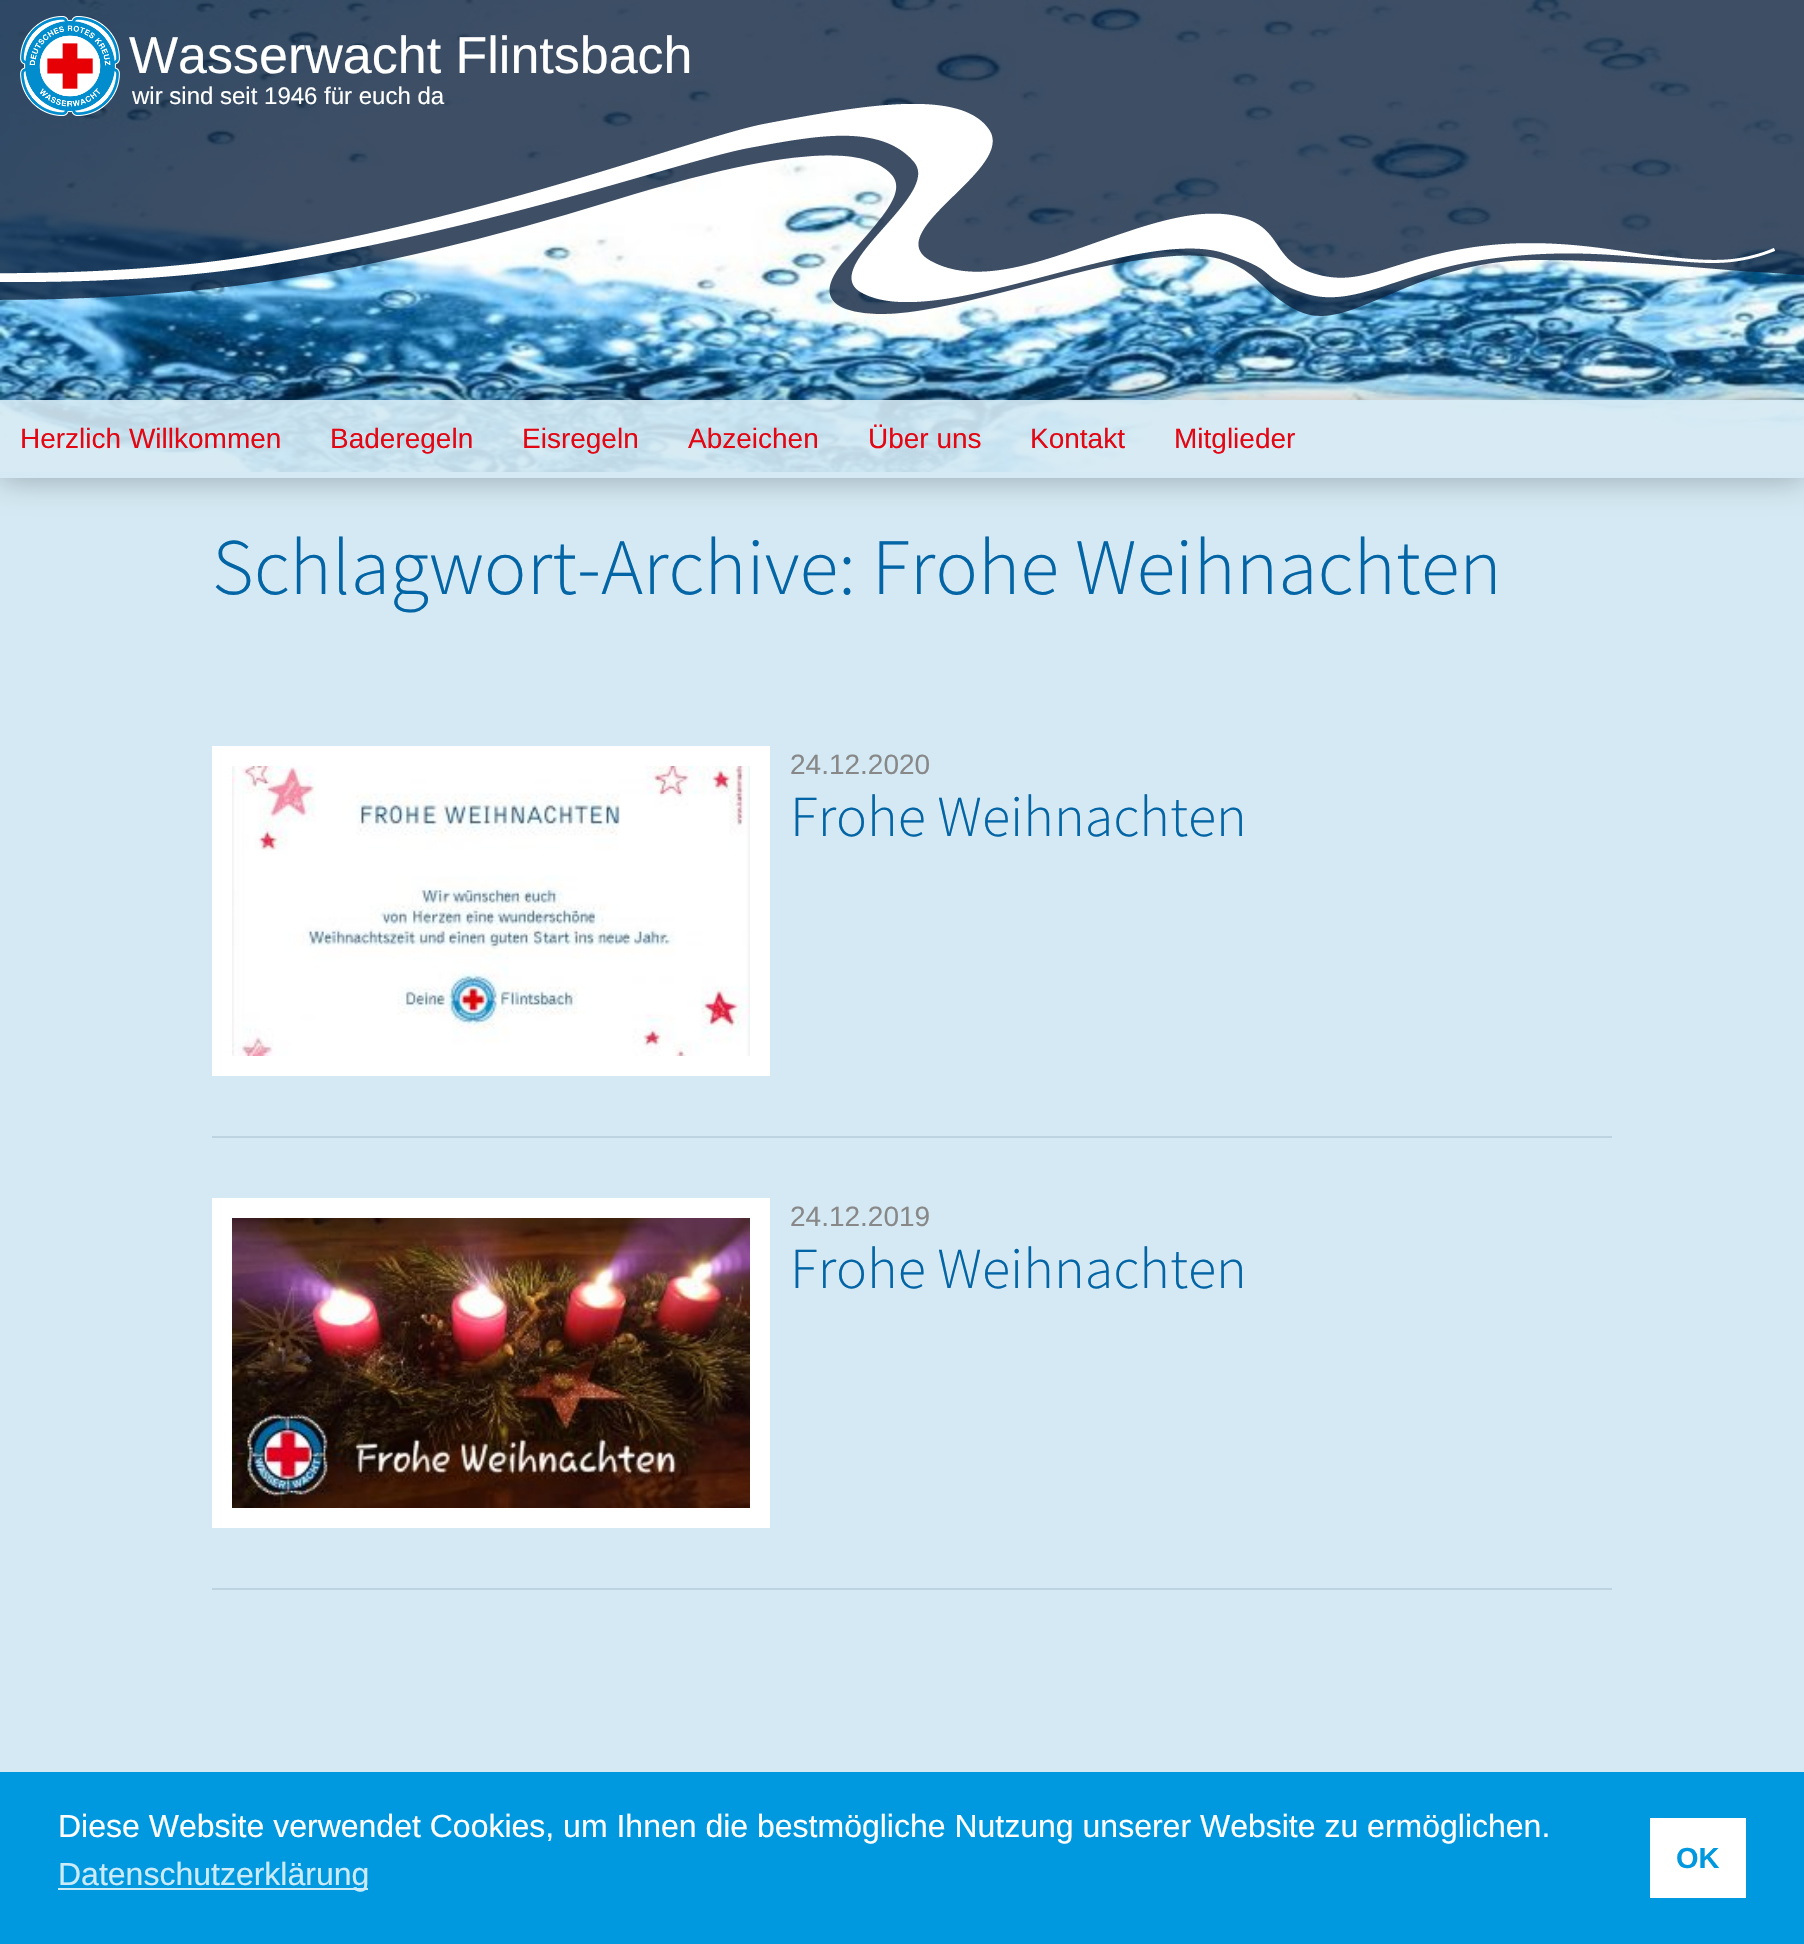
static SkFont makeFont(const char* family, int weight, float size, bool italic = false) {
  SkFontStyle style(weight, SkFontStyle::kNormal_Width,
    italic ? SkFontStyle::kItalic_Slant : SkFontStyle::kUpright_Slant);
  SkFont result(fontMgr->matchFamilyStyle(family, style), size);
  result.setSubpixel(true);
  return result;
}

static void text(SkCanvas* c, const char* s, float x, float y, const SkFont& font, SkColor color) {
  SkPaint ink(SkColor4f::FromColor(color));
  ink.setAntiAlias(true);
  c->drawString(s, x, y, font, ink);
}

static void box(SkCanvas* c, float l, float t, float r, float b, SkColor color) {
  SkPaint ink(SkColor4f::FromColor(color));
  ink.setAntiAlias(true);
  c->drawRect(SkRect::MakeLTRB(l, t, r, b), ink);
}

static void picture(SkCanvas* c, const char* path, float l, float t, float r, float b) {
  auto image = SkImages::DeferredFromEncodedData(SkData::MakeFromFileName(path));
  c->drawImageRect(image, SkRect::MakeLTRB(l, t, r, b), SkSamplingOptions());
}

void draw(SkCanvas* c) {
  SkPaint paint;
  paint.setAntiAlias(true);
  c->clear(0xffd4e9f3);
  picture(c, "img_02.png", 0, 0, 1804, 472);
  picture(c, "img_01.png", 0, 0, 1804, 316);
  picture(c, "img_03.png", 20, 16, 120, 116);
  SkFont face1 = makeFont("Liberation Sans", 400, 52);
  text(c, "Wasserwacht Flintsbach", 129, 73, face1, 0xffffffff);
  SkFont face2 = makeFont("Liberation Sans", 400, 24);
  text(c, "wir sind seit 1946 für euch da", 132, 104, face2, 0xffffffff);
  c->save();
  c->clipPath(SkPathBuilder(SkPathFillType::kEvenOdd).moveTo(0, 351).lineTo(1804, 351).lineTo(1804, 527).lineTo(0, 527).close().moveTo(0, 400).lineTo(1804, 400).lineTo(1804, 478).lineTo(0, 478).close().detach(), true);
  paint.setColor(0x4d000000);
  paint.setMaskFilter(SkMaskFilter::MakeBlur(kNormal_SkBlurStyle, 16));
  c->drawRect(SkRect::MakeLTRB(0, 400, 1804, 478), paint);
  paint.setMaskFilter(nullptr);
  c->restore();
  box(c, 0, 400, 1804, 472, 0xe6d4e9f3);
  SkFont face3 = makeFont("Liberation Sans", 400, 28);
  text(c, "Herzlich Willkommen", 20, 448, face3, 0xffe30613);
  text(c, "Baderegeln", 330, 448, face3, 0xffe30613);
  text(c, "Eisregeln", 522, 448, face3, 0xffe30613);
  text(c, "Abzeichen", 688, 448, face3, 0xffe30613);
  text(c, "Über uns", 868, 448, face3, 0xffe30613);
  text(c, "Kontakt", 1030, 448, face3, 0xffe30613);
  text(c, "Mitglieder", 1174, 448, face3, 0xffe30613);
  SkFont face4 = makeFont("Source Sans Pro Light", 300, 80);
  text(c, "Schlagwort-Archive: Frohe Weihnachten", 212, 594, face4, 0xff0365a5);
  box(c, 212, 1136, 1612, 1138, 0xffbed3e0);
  paint.setStyle(SkPaint::kStroke_Style);
  paint.setStrokeWidth(20);
  paint.setColor(0xffffffff);
  c->drawRect(SkRect::MakeLTRB(222, 756, 760, 1066), paint);
  picture(c, "img_04.png", 232, 766, 750, 1056);
  text(c, "24.12.2020", 790, 774, face3, 0xff888888);
  SkFont face5 = makeFont("Source Sans Pro Light", 300, 58);
  text(c, "Frohe Weihnachten", 790, 836, face5, 0xff0365a5);
  box(c, 212, 1588, 1612, 1590, 0xffbed3e0);
  c->drawRect(SkRect::MakeLTRB(222, 1208, 760, 1518), paint);
  picture(c, "img_05.png", 232, 1218, 750, 1508);
  text(c, "24.12.2019", 790, 1226, face3, 0xff888888);
  text(c, "Frohe Weihnachten", 790, 1288, face5, 0xff0365a5);
  box(c, 0, 1772, 1804, 1944, 0xff0099df);
  SkFont face6 = makeFont("Liberation Sans", 400, 32);
  text(c, "Diese Website verwendet Cookies, um Ihnen die bestmögliche Nutzung unserer Website zu ermöglichen.", 58, 1837, face6, 0xffffffff);
  box(c, 58, 1888, 368, 1890, 0xffccebf9);
  text(c, "Datenschutzerklärung", 58, 1885, face6, 0xffccebf9);
  box(c, 1650, 1818, 1746, 1898, 0xffffffff);
  SkFont face7 = makeFont("Liberation Sans", 700, 29);
  text(c, "OK", 1676, 1868, face7, 0xff0099df);
}
